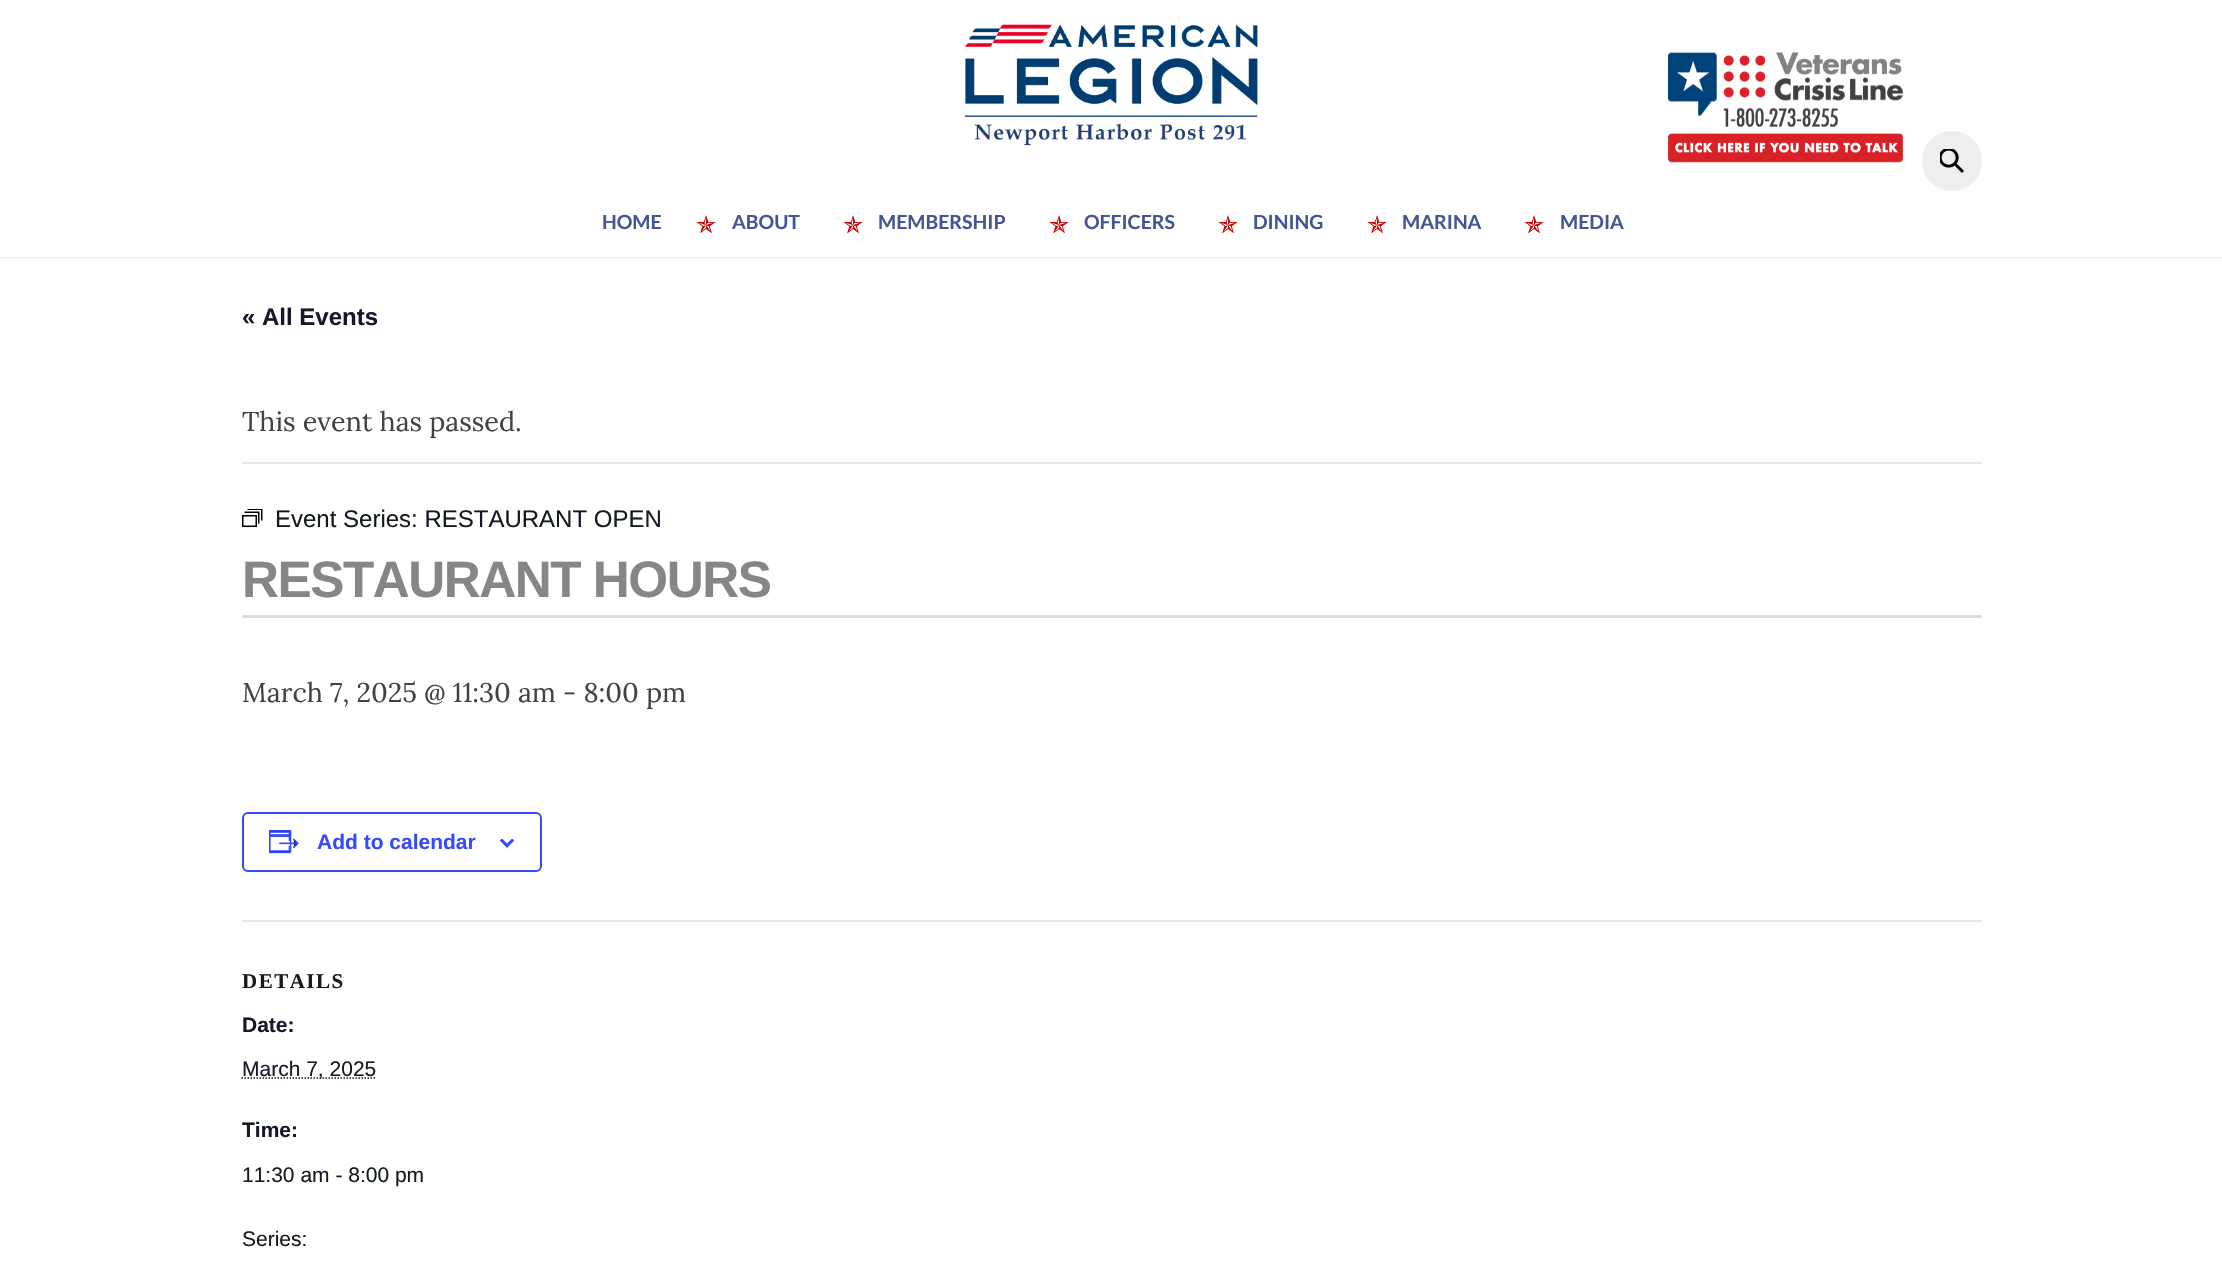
static SkFont makeFont(const char* family, int weight, float size, bool italic = false) {
  SkFontStyle style(weight, SkFontStyle::kNormal_Width,
    italic ? SkFontStyle::kItalic_Slant : SkFontStyle::kUpright_Slant);
  SkFont result(fontMgr->matchFamilyStyle(family, style), size);
  result.setSubpixel(true);
  return result;
}

static void text(SkCanvas* c, const char* s, float x, float y, const SkFont& font, SkColor color) {
  SkPaint ink(SkColor4f::FromColor(color));
  ink.setAntiAlias(true);
  c->drawString(s, x, y, font, ink);
}

static void spacedText(SkCanvas* c, const char* s, float x, float y, const SkFont& font, const SkPaint& ink, float letter, float word) {
  std::vector<SkGlyphID> glyphs(font.countText(s, strlen(s), SkTextEncoding::kUTF8));
  std::vector<float> xs(glyphs.size());
  font.textToGlyphs(s, strlen(s), SkTextEncoding::kUTF8, glyphs);
  font.getXPos(glyphs, xs, x);
  float extra = 0;
  for (size_t i = 0; i < glyphs.size(); i++) {
    xs[i] += extra;
    extra += letter + word * (glyphs[i] == font.unicharToGlyph(' '));
  }
  c->drawTextBlob(SkTextBlob::MakeFromPosHGlyphs(glyphs, xs, y, font), 0, 0, ink);
}

static void box(SkCanvas* c, float l, float t, float r, float b, SkColor color) {
  SkPaint ink(SkColor4f::FromColor(color));
  ink.setAntiAlias(true);
  c->drawRect(SkRect::MakeLTRB(l, t, r, b), ink);
}

static void picture(SkCanvas* c, const char* path, float l, float t, float r, float b) {
  auto image = SkImages::DeferredFromEncodedData(SkData::MakeFromFileName(path));
  c->drawImageRect(image, SkRect::MakeLTRB(l, t, r, b), SkSamplingOptions());
}

void draw(SkCanvas* c) {
  SkPaint paint;
  paint.setAntiAlias(true);
  c->clear(0xffffffff);
  box(c, 0, 257, 2222, 259, 0xfff2f2f2);
  picture(c, "img_01.png", 1668, 52, 1904, 163);
  paint.setColor(0xffeeeeee);
  c->drawCircle(1952, 161, 30, paint);
  picture(c, "img_02.png", 1940, 149, 1964, 173);
  picture(c, "img_03.png", 965, 24, 1258, 146);
  SkFont face1 = makeFont("Lato", 700, 19.5f);
  text(c, "HOME", 602, 229, face1, 0xff435499);
  SkFont face2 = makeFont("DejaVu Sans", 400, 24);
  text(c, "✯", 696, 233, face2, 0xffcc0000);
  text(c, "ABOUT", 732, 229, face1, 0xff435499);
  text(c, "✯", 843, 233, face2, 0xffcc0000);
  text(c, "MEMBERSHIP", 878, 229, face1, 0xff435499);
  text(c, "✯", 1049, 233, face2, 0xffcc0000);
  text(c, "OFFICERS", 1084, 229, face1, 0xff435499);
  text(c, "✯", 1218, 233, face2, 0xffcc0000);
  text(c, "DINING", 1253, 229, face1, 0xff435499);
  text(c, "✯", 1367, 233, face2, 0xffcc0000);
  text(c, "MARINA", 1402, 229, face1, 0xff435499);
  text(c, "✯", 1524, 233, face2, 0xffcc0000);
  text(c, "MEDIA", 1560, 229, face1, 0xff435499);
  SkFont face3 = makeFont("Liberation Sans", 700, 24);
  text(c, "« All Events", 242, 325, face3, 0xff141827);
  box(c, 242, 462, 1982, 464, 0xffe4e4e4);
  SkFont face4 = makeFont("Lora", 400, 27);
  text(c, "This event has passed.", 242, 431, face4, 0xff424242);
  picture(c, "img_04.png", 242, 509, 263, 527);
  SkFont face5 = makeFont("Liberation Sans", 400, 24);
  text(c, "Event Series: RESTAURANT OPEN", 275, 527, face5, 0xff141827);
  box(c, 242, 615, 1982, 618, 0xffdbdbdb);
  SkFont face6 = makeFont("Liberation Sans", 700, 51.25f);
  paint.setColor(0xff868686);
  spacedText(c, "RESTAURANT HOURS", 242, 597, face6, paint, -1.5f, 0);
  text(c, "March 7, 2025 @ 11:30 am - 8:00 pm", 242, 702, face4, 0xff424242);
  paint.setStyle(SkPaint::kStroke_Style);
  paint.setStrokeWidth(2);
  paint.setColor(0xff334aff);
  c->drawRoundRect(SkRect::MakeLTRB(243, 813, 541, 871), 5, 5, paint);
  picture(c, "img_05.png", 269, 830, 299, 854);
  SkFont face7 = makeFont("Liberation Sans", 700, 21);
  text(c, "Add to calendar", 317, 849, face7, 0xff334aff);
  picture(c, "img_06.png", 500, 839, 515, 848);
  box(c, 242, 920, 1982, 922, 0xffe4e4e4);
  SkFont face8 = makeFont("Liberation Serif", 700, 21);
  paint.setStyle(SkPaint::kFill_Style);
  paint.setColor(0xff141827);
  spacedText(c, "DETAILS", 242, 988, face8, paint, 1.5f, 0);
  text(c, "Date:", 242, 1032, face7, 0xff141827);
  paint.setStyle(SkPaint::kStroke_Style);
  paint.setStrokeWidth(1.5f);
  paint.setPathEffect(SkDashPathEffect::Make({{1.5f, 1.5f}}, 0));
  c->drawPath(SkPathBuilder().moveTo(241.5f, 1078).lineTo(376, 1078).detach(), paint);
  paint.setPathEffect(nullptr);
  SkFont face9 = makeFont("Liberation Sans", 400, 21);
  text(c, "March 7, 2025", 242, 1076, face9, 0xff141827);
  c->save();
  c->clipRect(SkRect::MakeLTRB(242, 764, 1982, 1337));
  text(c, "Time:", 242, 1137, face7, 0xff141827);
  c->restore();
  text(c, "11:30 am - 8:00 pm", 242, 1182, face9, 0xff141827);
  text(c, "Series:", 242, 1246, face9, 0xff141827);
}
